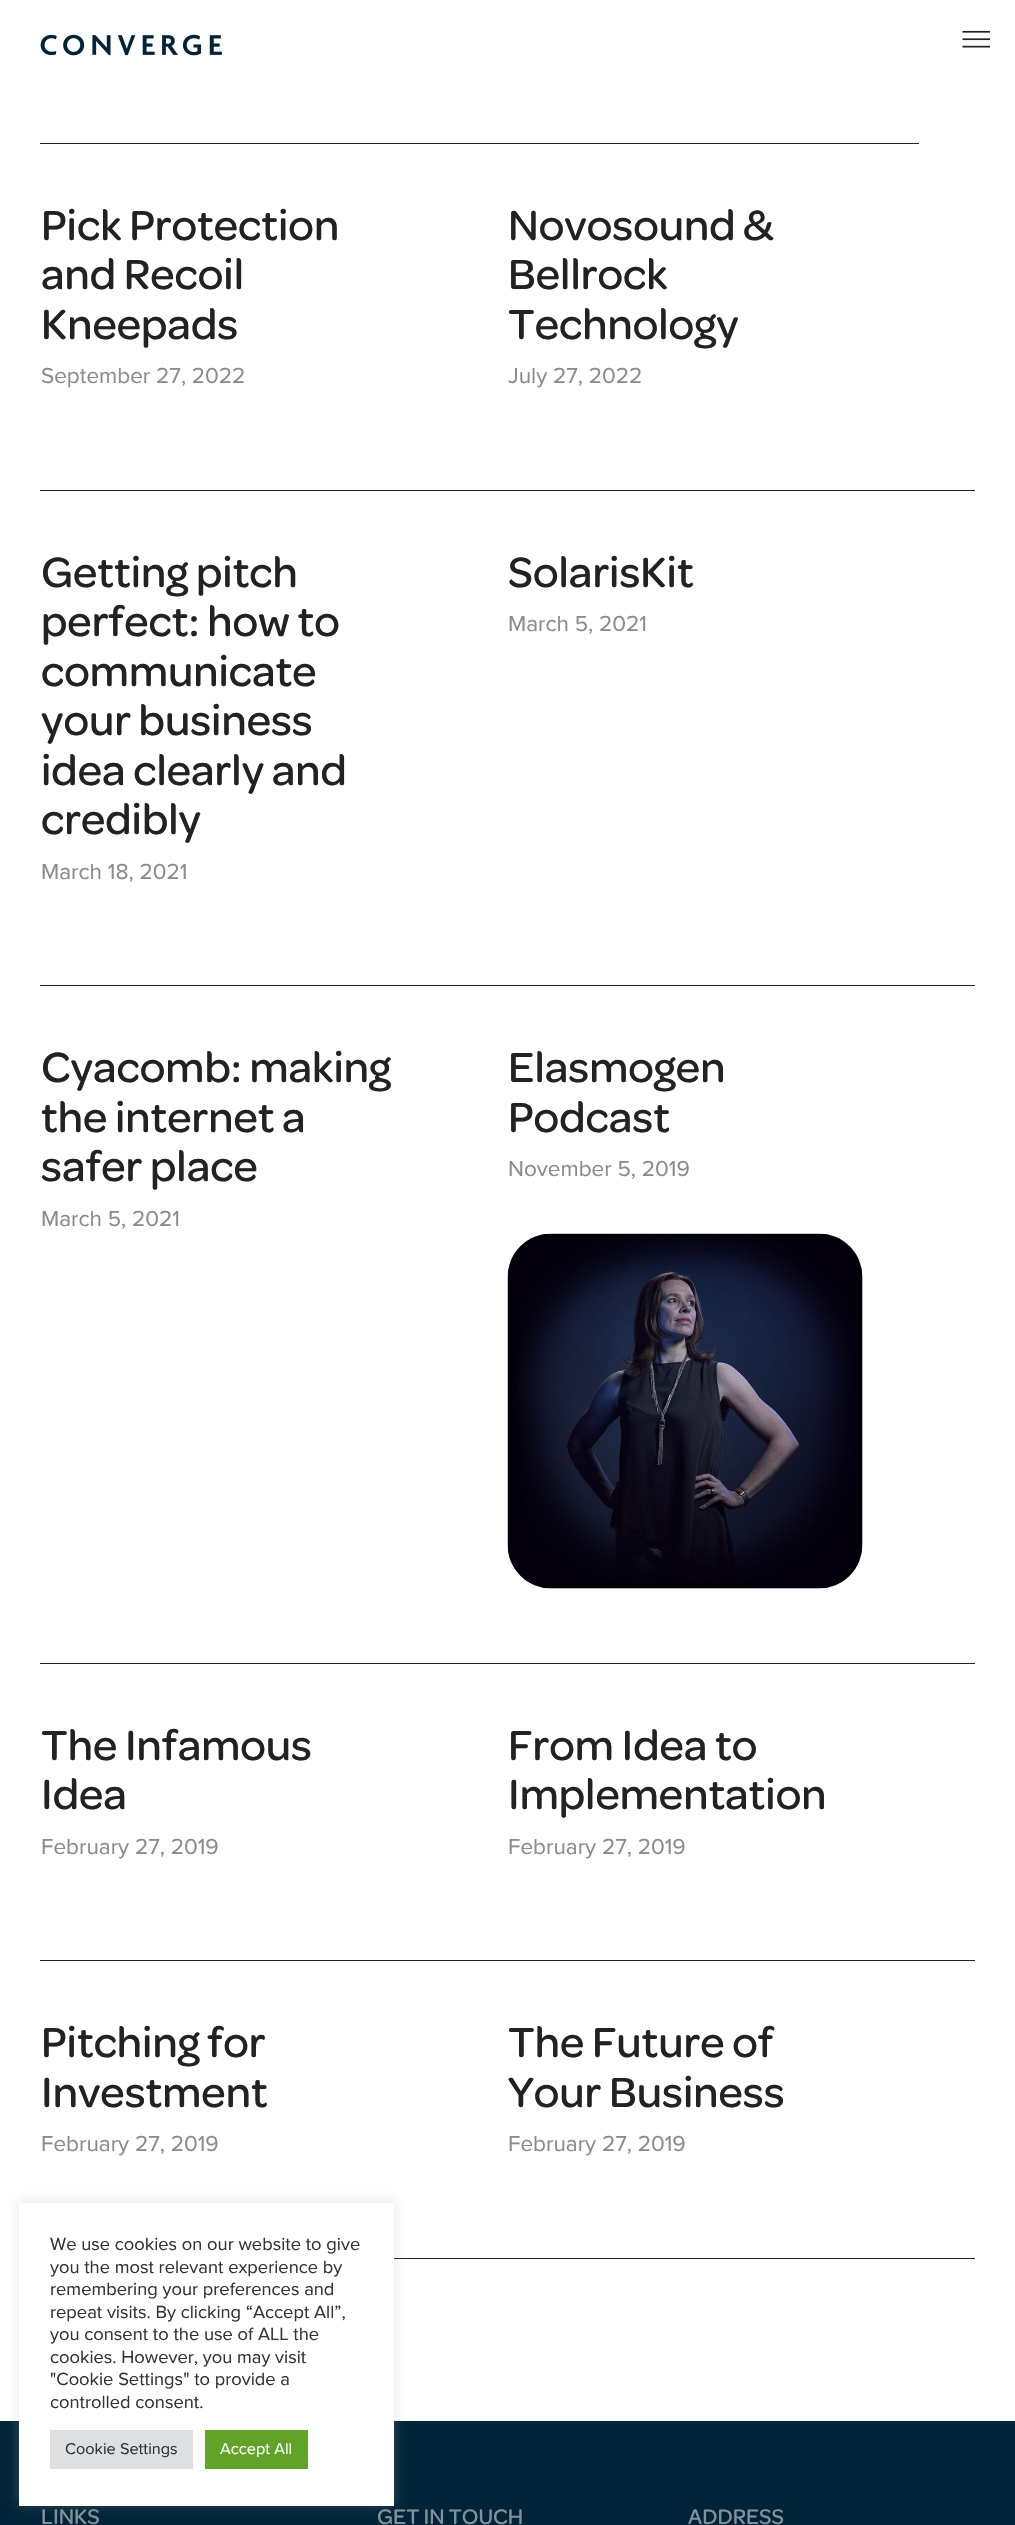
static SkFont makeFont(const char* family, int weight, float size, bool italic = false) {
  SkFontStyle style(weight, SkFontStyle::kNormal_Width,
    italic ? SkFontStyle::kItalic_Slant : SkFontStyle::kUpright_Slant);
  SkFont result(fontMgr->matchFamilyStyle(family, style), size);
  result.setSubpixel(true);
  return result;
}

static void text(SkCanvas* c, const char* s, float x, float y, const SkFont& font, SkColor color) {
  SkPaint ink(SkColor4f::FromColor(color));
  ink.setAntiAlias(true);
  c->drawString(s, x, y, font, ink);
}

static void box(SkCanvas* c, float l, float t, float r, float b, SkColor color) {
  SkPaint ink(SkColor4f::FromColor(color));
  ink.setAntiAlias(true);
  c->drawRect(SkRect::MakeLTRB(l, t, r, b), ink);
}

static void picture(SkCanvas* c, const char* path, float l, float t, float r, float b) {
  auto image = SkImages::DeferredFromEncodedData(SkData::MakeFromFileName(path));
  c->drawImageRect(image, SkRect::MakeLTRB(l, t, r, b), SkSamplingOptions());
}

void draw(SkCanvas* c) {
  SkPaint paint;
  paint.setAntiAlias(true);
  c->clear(0xffffffff);
  picture(c, "img_01.png", 40, 34, 222, 56);
  picture(c, "img_02.png", 962, 30, 990, 48);
  box(c, 40, 143, 919, 144, 0xff222222);
  SkFont face1 = makeFont("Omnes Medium", 500, 45);
  text(c, "Pick Protection", 41, 240, face1, 0xff222222);
  text(c, "and Recoil", 41, 289, face1, 0xff222222);
  text(c, "Kneepads", 41, 339, face1, 0xff222222);
  SkFont face2 = makeFont("Proxima Nova", 400, 22.5f);
  text(c, "September 27, 2022", 41, 383, face2, 0xff8a8a8a);
  box(c, 40, 490, 975, 491, 0xff222222);
  text(c, "Novosound &", 508, 240, face1, 0xff222222);
  text(c, "Bellrock", 508, 289, face1, 0xff222222);
  text(c, "Technology", 508, 339, face1, 0xff222222);
  text(c, "July 27, 2022", 508, 383, face2, 0xff8a8a8a);
  text(c, "Getting pitch", 41, 587, face1, 0xff222222);
  text(c, "perfect: how to", 41, 636, face1, 0xff222222);
  text(c, "communicate", 41, 686, face1, 0xff222222);
  text(c, "your business", 41, 735, face1, 0xff222222);
  text(c, "idea clearly and", 41, 785, face1, 0xff222222);
  text(c, "credibly", 41, 834, face1, 0xff222222);
  text(c, "March 18, 2021", 41, 879, face2, 0xff8a8a8a);
  box(c, 40, 985, 975, 986, 0xff222222);
  text(c, "SolarisKit", 508, 587, face1, 0xff222222);
  text(c, "March 5, 2021", 508, 631, face2, 0xff8a8a8a);
  text(c, "Cyacomb: making", 41, 1082, face1, 0xff222222);
  text(c, "the internet a", 41, 1132, face1, 0xff222222);
  text(c, "safer place", 41, 1181, face1, 0xff222222);
  text(c, "March 5, 2021", 41, 1226, face2, 0xff8a8a8a);
  box(c, 40, 1663, 975, 1664, 0xff222222);
  text(c, "Elasmogen", 508, 1082, face1, 0xff222222);
  text(c, "Podcast", 508, 1132, face1, 0xff222222);
  text(c, "November 5, 2019", 508, 1176, face2, 0xff8a8a8a);
  picture(c, "img_03.png", 507, 1233, 863, 1589);
  text(c, "The Infamous", 41, 1760, face1, 0xff222222);
  text(c, "Idea", 41, 1809, face1, 0xff222222);
  text(c, "February 27, 2019", 41, 1854, face2, 0xff8a8a8a);
  box(c, 40, 1960, 975, 1961, 0xff222222);
  text(c, "From Idea to", 508, 1760, face1, 0xff222222);
  text(c, "Implementation", 508, 1809, face1, 0xff222222);
  text(c, "February 27, 2019", 508, 1854, face2, 0xff8a8a8a);
  text(c, "Pitching for", 41, 2057, face1, 0xff222222);
  text(c, "Investment", 41, 2107, face1, 0xff222222);
  text(c, "February 27, 2019", 41, 2151, face2, 0xff8a8a8a);
  box(c, 394, 2258, 975, 2259, 0xff222222);
  text(c, "The Future of", 508, 2057, face1, 0xff222222);
  text(c, "Your Business", 508, 2107, face1, 0xff222222);
  text(c, "February 27, 2019", 508, 2151, face2, 0xff8a8a8a);
  box(c, 0, 2421, 1015, 2525, 0xff002337);
  SkFont face3 = makeFont("Omnes Medium", 500, 22.5f);
  text(c, "LINKS", 41, 2524, face3, 0xff80919b);
  text(c, "GET IN TOUCH", 377, 2524, face3, 0xff80919b);
  text(c, "ADDRESS", 688, 2524, face3, 0xff80919b);
  paint.setColor(0x4dacabab);
  paint.setMaskFilter(SkMaskFilter::MakeBlur(kNormal_SkBlurStyle, 6));
  c->drawRect(SkRect::MakeLTRB(19, 2201, 394, 2505), paint);
  paint.setMaskFilter(nullptr);
  box(c, 19, 2203, 394, 2506, 0xffffffff);
  SkFont face4 = makeFont("Proxima Nova", 400, 18.3f);
  text(c, "We use cookies on our website to give", 50, 2250, face4, 0xff333333);
  text(c, "you the most relevant experience by", 50, 2273, face4, 0xff333333);
  text(c, "remembering your preferences and", 50, 2295, face4, 0xff333333);
  text(c, "repeat visits. By clicking “Accept All”,", 50, 2318, face4, 0xff333333);
  text(c, "you consent to the use of ALL the", 50, 2340, face4, 0xff333333);
  text(c, "cookies. However, you may visit", 50, 2363, face4, 0xff333333);
  text(c, "\"Cookie Settings\" to provide a", 50, 2385, face4, 0xff333333);
  text(c, "controlled consent.", 50, 2408, face4, 0xff333333);
  box(c, 50, 2430, 193, 2469, 0xffdedfe0);
  SkFont face5 = makeFont("Proxima Nova", 400, 16.25f);
  text(c, "Cookie Settings", 65, 2454, face5, 0xff333333);
  box(c, 205, 2430, 308, 2469, 0xff61a229);
  text(c, "Accept All", 220, 2454, face5, 0xffffffff);
}
